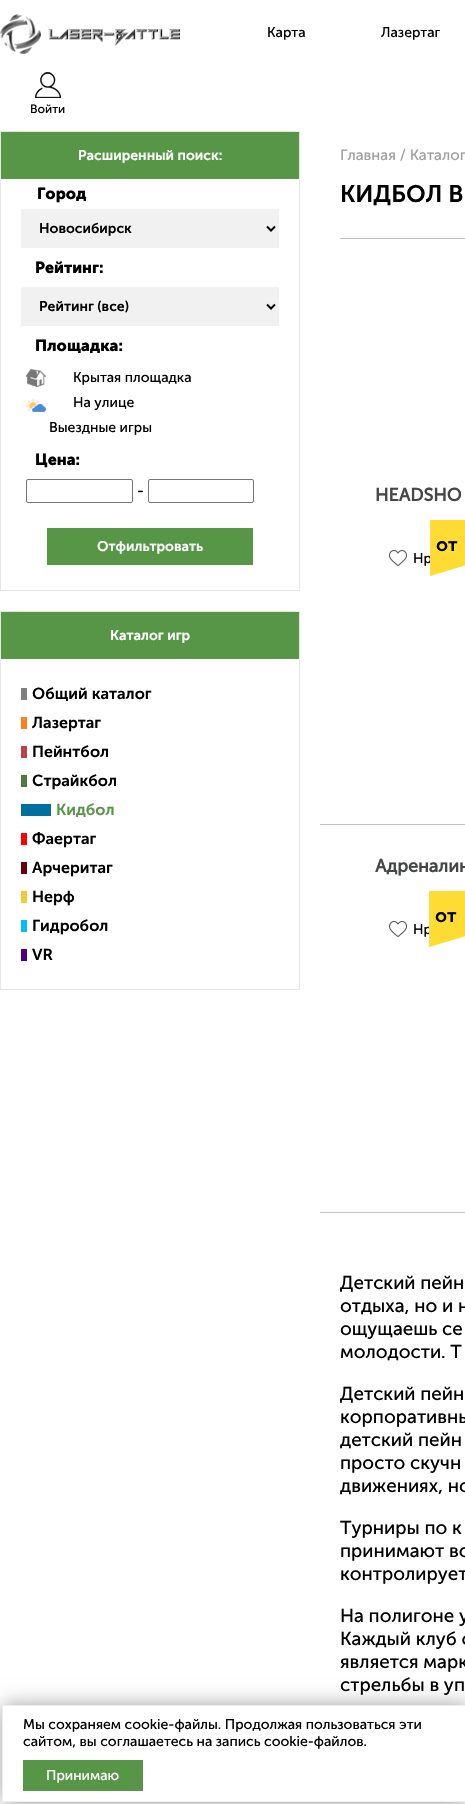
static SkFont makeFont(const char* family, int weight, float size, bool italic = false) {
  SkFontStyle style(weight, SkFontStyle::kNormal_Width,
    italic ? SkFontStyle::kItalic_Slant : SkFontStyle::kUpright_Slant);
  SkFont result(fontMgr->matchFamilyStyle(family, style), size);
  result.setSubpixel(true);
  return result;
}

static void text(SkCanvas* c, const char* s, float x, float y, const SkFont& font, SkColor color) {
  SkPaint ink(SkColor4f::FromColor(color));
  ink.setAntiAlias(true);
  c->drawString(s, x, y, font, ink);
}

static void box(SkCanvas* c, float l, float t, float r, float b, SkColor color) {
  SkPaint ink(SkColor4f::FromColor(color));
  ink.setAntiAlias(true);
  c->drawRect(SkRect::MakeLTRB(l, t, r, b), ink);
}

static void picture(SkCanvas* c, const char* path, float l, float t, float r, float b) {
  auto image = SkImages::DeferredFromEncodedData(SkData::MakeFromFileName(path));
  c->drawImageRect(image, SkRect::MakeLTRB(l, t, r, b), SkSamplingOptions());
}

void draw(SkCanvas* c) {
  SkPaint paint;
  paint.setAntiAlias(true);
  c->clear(0xffffffff);
  picture(c, "img_01.png", 0, 14, 180, 54);
  SkFont face1 = makeFont("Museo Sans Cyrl", 400, 14);
  text(c, "Карта", 267, 37, face1, 0xff000000);
  text(c, "Лазертаг", 381, 37, face1, 0xff000000);
  picture(c, "img_02.png", 35, 72, 61, 98);
  SkFont face2 = makeFont("Museo Sans Cyrl", 400, 12);
  text(c, "Войти", 30, 113, face2, 0xff000000);
  paint.setStyle(SkPaint::kStroke_Style);
  paint.setStrokeWidth(1);
  paint.setColor(0xffe6e6e6);
  c->drawRect(SkRect::MakeLTRB(0.5f, 131.5f, 299.5f, 590.5f), paint);
  box(c, 1, 132, 299, 179, 0xff579647);
  SkFont face3 = makeFont("Museo Sans Cyrl", 600, 14);
  text(c, "Расширенный поиск:", 78, 160, face3, 0xffffffff);
  SkFont face4 = makeFont("Museo Sans Cyrl", 700, 16);
  text(c, "Город", 37, 199, face4, 0xff000000);
  box(c, 21, 209, 279, 248, 0xfff1f1f1);
  paint.setStrokeWidth(2);
  paint.setColor(0xff000000);
  c->drawPath(SkPathBuilder().moveTo(267, 226.5f).lineTo(271, 230.5f).lineTo(275, 226.5f).detach(), paint);
  text(c, "Новосибирск", 39, 233, face3, 0xff000000);
  text(c, "Рейтинг:", 35, 273, face4, 0xff000000);
  box(c, 21, 287, 279, 326, 0xfff1f1f1);
  c->drawPath(SkPathBuilder().moveTo(267, 304.5f).lineTo(271, 308.5f).lineTo(275, 304.5f).detach(), paint);
  text(c, "Рейтинг (все)", 39, 311, face3, 0xff000000);
  text(c, "Площадка:", 35, 351, face4, 0xff000000);
  picture(c, "img_03.png", 26, 369, 46, 387);
  text(c, "Крытая площадка", 73, 382, face1, 0xff000000);
  picture(c, "img_04.png", 26, 399, 46, 412);
  text(c, "На улице", 73, 407, face1, 0xff000000);
  text(c, "Выездные игры", 49, 432, face1, 0xff000000);
  text(c, "Цена:", 35, 465, face4, 0xff000000);
  paint.setStrokeWidth(1);
  paint.setColor(0xff767676);
  c->drawRoundRect(SkRect::MakeLTRB(26.5f, 479.5f, 132.5f, 502.5f), 1.5f, 1.5f, paint);
  SkFont face5 = makeFont("Museo Sans Cyrl", 400, 16);
  text(c, "-", 137, 496, face5, 0xff000000);
  c->drawRoundRect(SkRect::MakeLTRB(148.5f, 479.5f, 253.5f, 502.5f), 1.5f, 1.5f, paint);
  box(c, 47, 528, 253, 565, 0xff579647);
  text(c, "Отфильтровать", 97, 551, face3, 0xffffffff);
  SkFont face6 = makeFont("Museo Sans Cyrl", 400, 15);
  text(c, "Главная / Каталог", 340, 160, face6, 0xff9f9f9f);
  box(c, 340, 238, 465, 239, 0xffc1c1c1);
  SkFont face7 = makeFont("Museo Sans Cyrl", 600, 24);
  text(c, "КИДБОЛ В", 340, 202, face7, 0xff000000);
  box(c, 320, 824, 465, 825, 0xffc1c1c1);
  SkFont face8 = makeFont("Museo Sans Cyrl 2", 700, 18);
  text(c, "HEADSHO", 375, 501, face8, 0xff454747);
  text(c, "Нр", 413, 563, face1, 0xff000000);
  picture(c, "img_05.png", 430, 520, 465, 576);
  SkFont face9 = makeFont("Museo Sans Cyrl", 600, 19);
  text(c, "от", 436, 551, face9, 0xff000000);
  picture(c, "img_06.png", 389, 550, 407, 566);
  box(c, 320, 1212, 465, 1213, 0xffc1c1c1);
  text(c, "Адреналин", 375, 872, face8, 0xff454747);
  text(c, "Нр", 413, 934, face1, 0xff000000);
  picture(c, "img_07.png", 429, 891, 465, 947);
  text(c, "от", 435, 922, face9, 0xff000000);
  picture(c, "img_06.png", 389, 921, 407, 937);
  SkFont face10 = makeFont("Museo Sans Cyrl", 400, 18.75f);
  text(c, "Детский пейн", 340, 1289, face10, 0xff000000);
  text(c, "отдыха, но и н", 340, 1312, face10, 0xff000000);
  text(c, "ощущаешь се", 340, 1335, face10, 0xff000000);
  text(c, "молодости. Т", 340, 1358, face10, 0xff000000);
  text(c, "Детский пейн", 340, 1400, face10, 0xff000000);
  text(c, "корпоративны", 340, 1423, face10, 0xff000000);
  text(c, "детский пейн", 340, 1446, face10, 0xff000000);
  text(c, "просто скучн", 340, 1469, face10, 0xff000000);
  text(c, "движениях, но", 340, 1492, face10, 0xff000000);
  text(c, "Турниры по к", 340, 1534, face10, 0xff000000);
  text(c, "принимают вс", 340, 1557, face10, 0xff000000);
  text(c, "контролирует", 340, 1580, face10, 0xff000000);
  text(c, "На полигоне у", 340, 1622, face10, 0xff000000);
  text(c, "Каждый клуб с", 340, 1645, face10, 0xff000000);
  text(c, "является марк", 340, 1668, face10, 0xff000000);
  text(c, "стрельбы в уп", 340, 1691, face10, 0xff000000);
  paint.setColor(0xffe6e6e6);
  c->drawRect(SkRect::MakeLTRB(0.5f, 611.5f, 299.5f, 989.5f), paint);
  box(c, 1, 612, 299, 659, 0xff579647);
  text(c, "Каталог игр", 110, 640, face3, 0xffffffff);
  box(c, 21, 688, 27, 700, 0xff808080);
  SkFont face11 = makeFont("Museo Sans Cyrl", 600, 16);
  text(c, "Общий каталог", 32, 699, face11, 0xff000000);
  box(c, 21, 717, 27, 729, 0xffff811a);
  text(c, "Лазертаг", 32, 728, face11, 0xff000000);
  box(c, 21, 746, 27, 758, 0xffbd414b);
  text(c, "Пейнтбол", 32, 757, face11, 0xff000000);
  box(c, 21, 775, 27, 787, 0xff4f7942);
  text(c, "Страйкбол", 32, 786, face11, 0xff000000);
  box(c, 21, 804, 51, 816, 0xff00709e);
  text(c, "Кидбол", 56, 815, face11, 0xff579647);
  box(c, 21, 833, 27, 845, 0xffff0000);
  text(c, "Фаертаг", 32, 844, face11, 0xff000000);
  box(c, 21, 862, 27, 874, 0xff6c000a);
  text(c, "Арчеритаг", 32, 873, face11, 0xff000000);
  box(c, 21, 891, 27, 903, 0xfff3cc2c);
  text(c, "Нерф", 32, 902, face11, 0xff000000);
  box(c, 21, 920, 27, 932, 0xff00bfff);
  text(c, "Гидробол", 32, 931, face11, 0xff000000);
  box(c, 21, 949, 27, 961, 0xff4b0082);
  text(c, "VR", 32, 960, face11, 0xff000000);
  paint.setStyle(SkPaint::kFill_Style);
  paint.setColor(0x66000000);
  paint.setMaskFilter(SkMaskFilter::MakeBlur(kNormal_SkBlurStyle, 10));
  c->drawRect(SkRect::MakeLTRB(3, 1706, 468, 1803), paint);
  paint.setMaskFilter(nullptr);
  paint.setColor(0xffffffff);
  c->drawRect(SkRect::MakeLTRB(2.5f, 1705.5f, 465.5f, 1801.5f), paint);
  paint.setStyle(SkPaint::kStroke_Style);
  paint.setColor(0xffeeeeee);
  c->drawRect(SkRect::MakeLTRB(2.5f, 1705.5f, 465.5f, 1801.5f), paint);
  text(c, "Мы сохраняем cookie-файлы. Продолжая пользоваться эти", 23, 1729, face1, 0xff000000);
  text(c, "сайтом, вы соглашаетесь на запись cookie-файлов.", 23, 1746, face1, 0xff000000);
  box(c, 23, 1760, 143, 1791, 0xff579647);
  text(c, "Принимаю", 46, 1780, face1, 0xffffffff);
}
